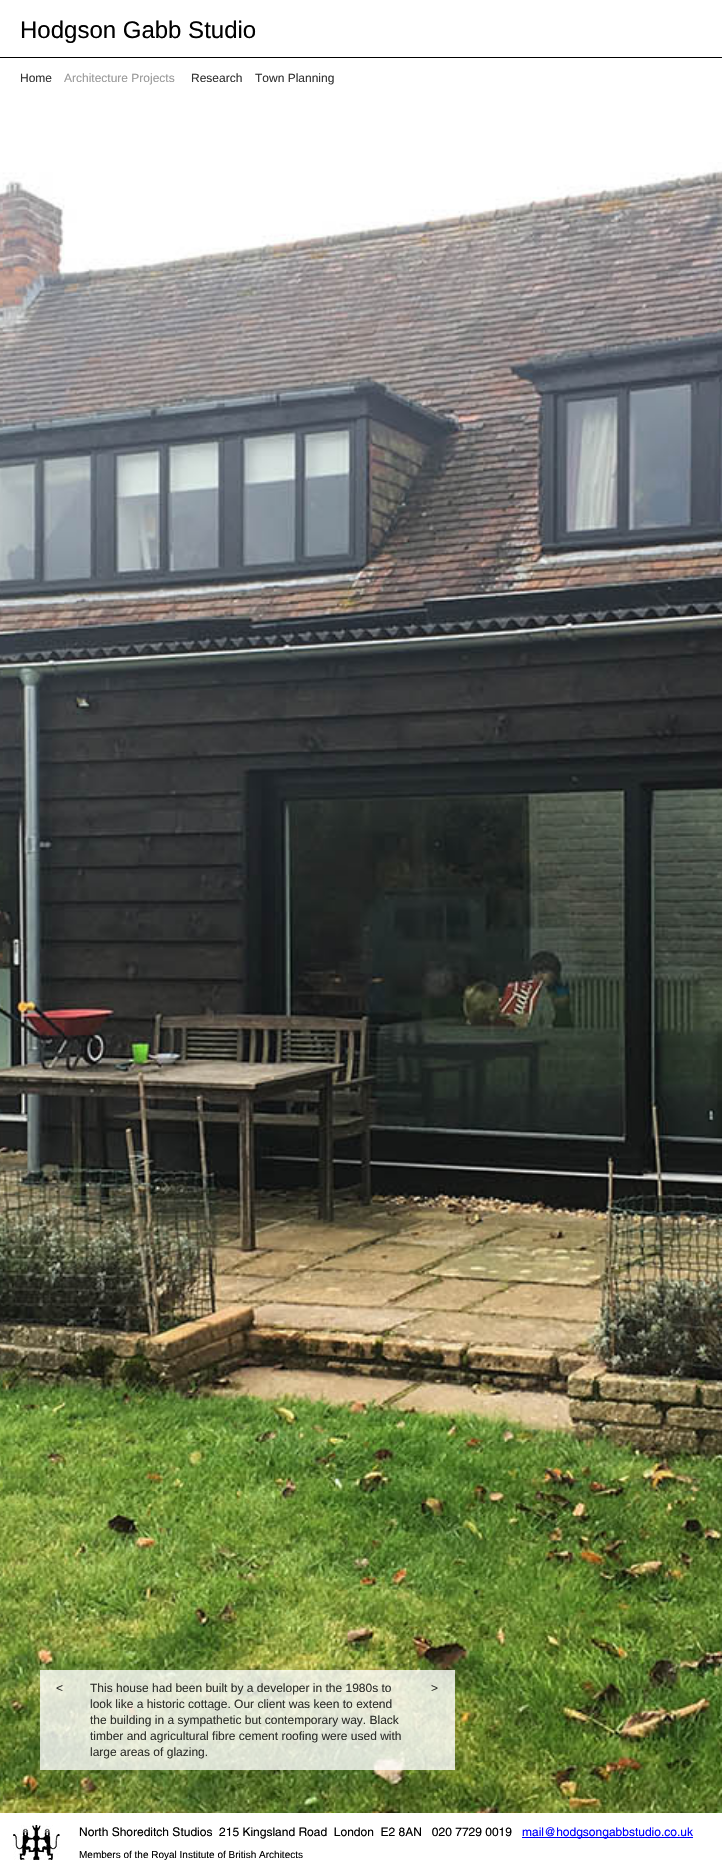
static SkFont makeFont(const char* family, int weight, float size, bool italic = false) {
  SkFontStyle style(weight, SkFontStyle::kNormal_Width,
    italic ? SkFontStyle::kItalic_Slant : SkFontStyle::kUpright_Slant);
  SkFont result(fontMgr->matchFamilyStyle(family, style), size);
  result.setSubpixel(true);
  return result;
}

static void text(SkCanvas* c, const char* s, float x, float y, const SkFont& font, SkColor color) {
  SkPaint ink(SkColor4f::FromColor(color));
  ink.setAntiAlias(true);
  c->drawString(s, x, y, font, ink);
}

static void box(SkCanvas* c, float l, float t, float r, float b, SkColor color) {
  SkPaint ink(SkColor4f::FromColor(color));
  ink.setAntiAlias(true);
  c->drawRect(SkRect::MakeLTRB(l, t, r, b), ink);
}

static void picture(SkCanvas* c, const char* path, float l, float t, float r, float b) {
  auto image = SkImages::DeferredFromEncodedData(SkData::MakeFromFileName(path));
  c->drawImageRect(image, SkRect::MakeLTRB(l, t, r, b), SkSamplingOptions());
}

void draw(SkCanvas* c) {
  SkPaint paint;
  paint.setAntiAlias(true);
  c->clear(0xffffffff);
  SkFont face1 = makeFont("Liberation Sans", 400, 24);
  text(c, "Hodgson Gabb Studio", 20, 38, face1, 0xff000000);
  box(c, 0, 57, 722, 58, 0xff000000);
  SkFont face2 = makeFont("Liberation Sans", 400, 12);
  text(c, "Home", 20, 82, face2, 0xff333333);
  text(c, "Architecture Projects", 64, 82, face2, 0xff999999);
  text(c, "Research", 191, 82, face2, 0xff333333);
  text(c, "Town Planning", 255, 82, face2, 0xff333333);
  picture(c, "img_01.png", 0, 162, 722, 1813);
  box(c, 40, 1670, 80, 1770, 0xccffffff);
  text(c, "<", 56, 1692, face2, 0xff2e2f2b);
  box(c, 80, 1670, 415, 1770, 0xccffffff);
  text(c, "This house had been built by a developer in the 1980s to", 90, 1692, face2, 0xff2e2f2b);
  text(c, "look like a historic cottage. Our client was keen to extend", 90, 1708, face2, 0xff2e2f2b);
  text(c, "the building in a sympathetic but contemporary way. Black", 90, 1724, face2, 0xff2e2f2b);
  text(c, "timber and agricultural fibre cement roofing were used with", 90, 1740, face2, 0xff2e2f2b);
  text(c, "large areas of glazing.", 90, 1756, face2, 0xff2e2f2b);
  box(c, 415, 1670, 455, 1770, 0xccffffff);
  text(c, ">", 431, 1692, face2, 0xff2e2f2b);
  picture(c, "img_02.png", 13, 1825, 60, 1860);
  SkFont face3 = makeFont("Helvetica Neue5", 400, 12);
  text(c, "North Shoreditch Studios  215 Kingsland Road  London  E2 8AN   020 7729 0019", 79, 1836, face3, 0xff000000);
  box(c, 522, 1837, 693, 1838, 0xff0000ff);
  text(c, "mail@hodgsongabbstudio.co.uk", 522, 1836, face3, 0xff0000ff);
  SkFont face4 = makeFont("Liberation Sans", 400, 10);
  text(c, "Members of the Royal Institute of British Architects", 79, 1858, face4, 0xff000000);
}
